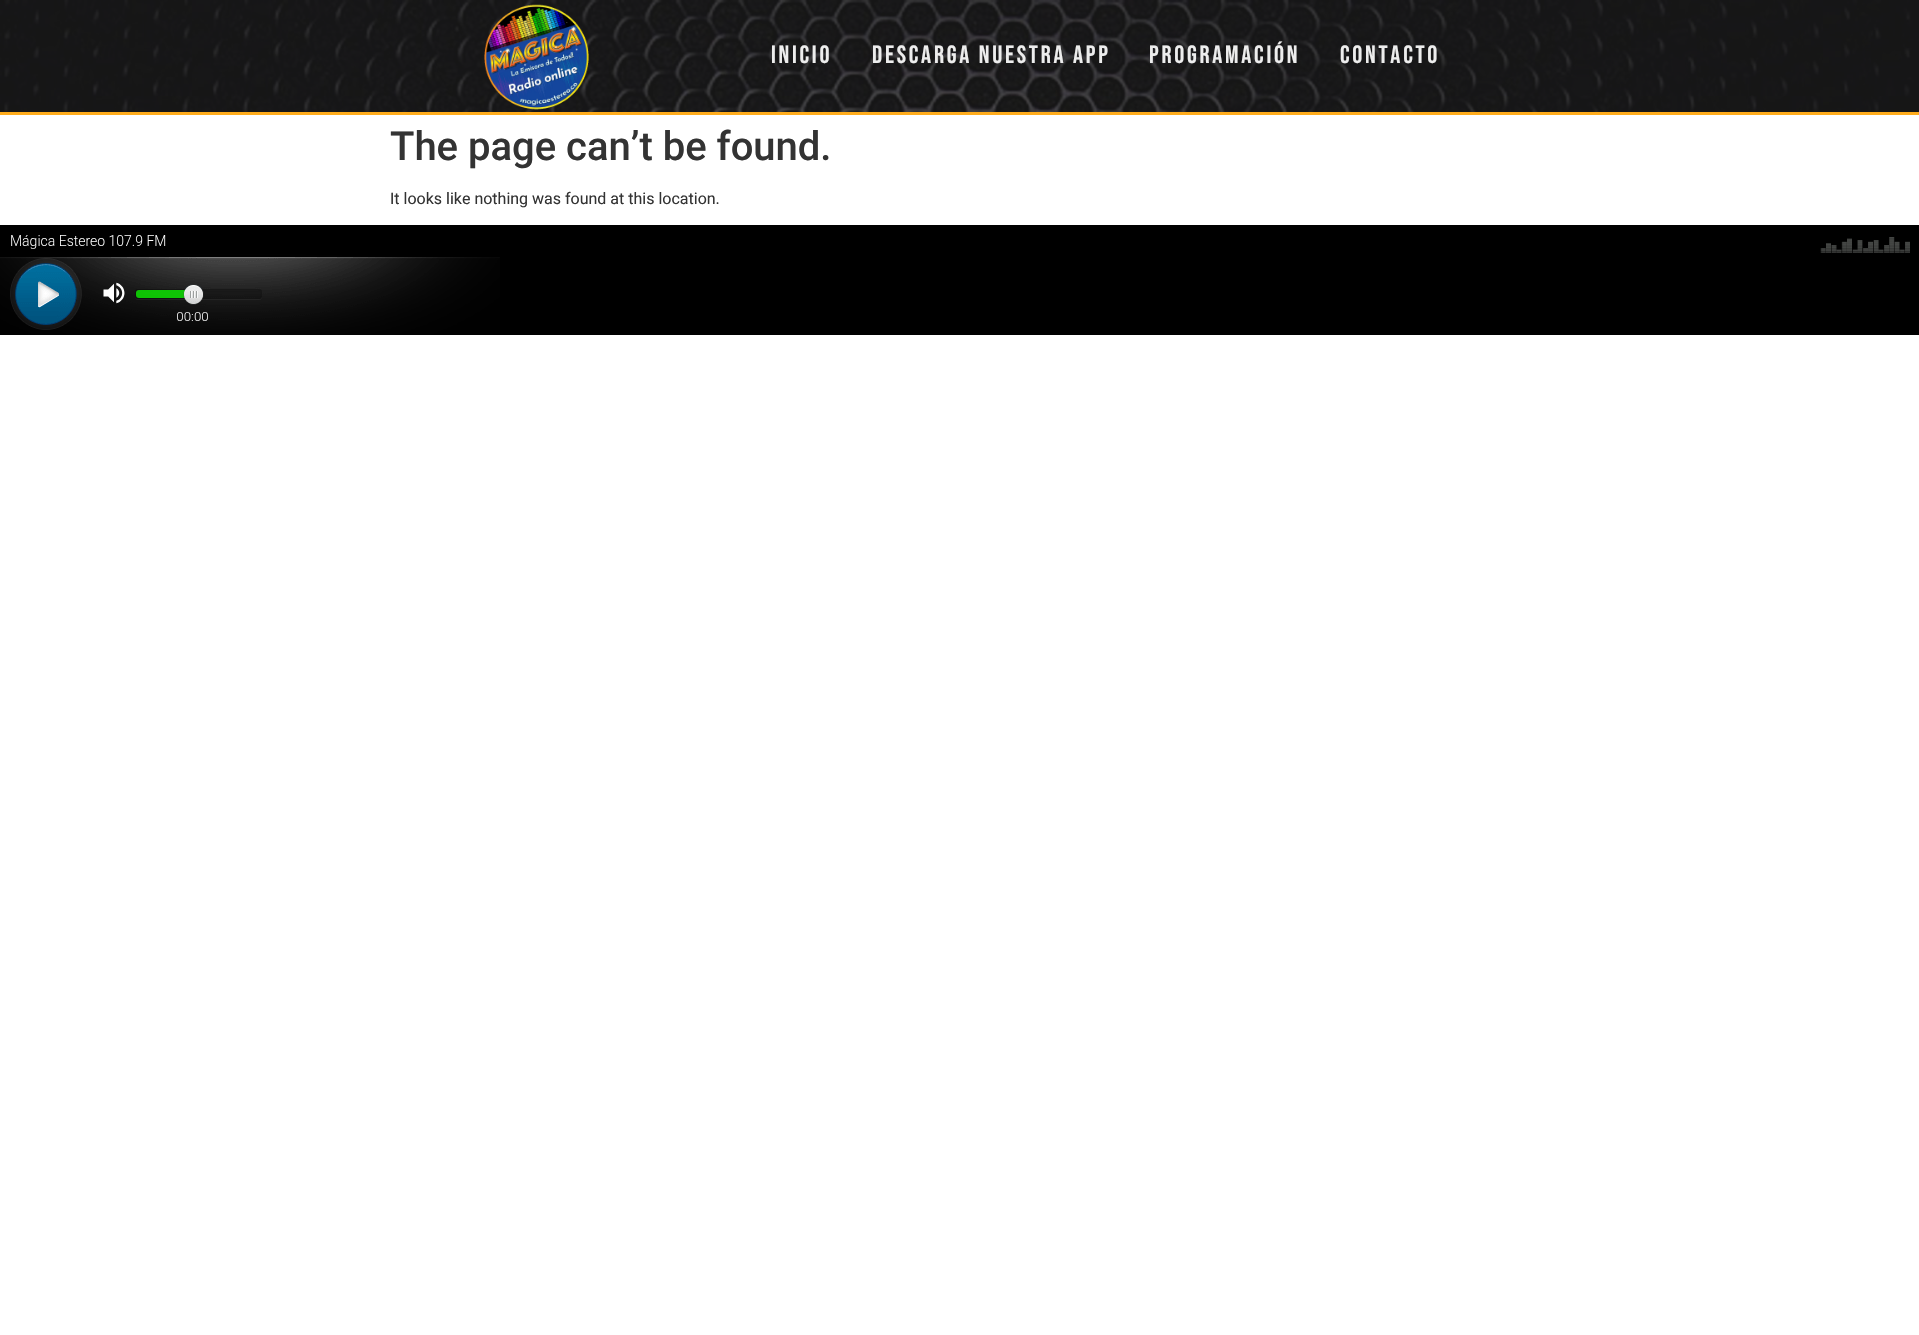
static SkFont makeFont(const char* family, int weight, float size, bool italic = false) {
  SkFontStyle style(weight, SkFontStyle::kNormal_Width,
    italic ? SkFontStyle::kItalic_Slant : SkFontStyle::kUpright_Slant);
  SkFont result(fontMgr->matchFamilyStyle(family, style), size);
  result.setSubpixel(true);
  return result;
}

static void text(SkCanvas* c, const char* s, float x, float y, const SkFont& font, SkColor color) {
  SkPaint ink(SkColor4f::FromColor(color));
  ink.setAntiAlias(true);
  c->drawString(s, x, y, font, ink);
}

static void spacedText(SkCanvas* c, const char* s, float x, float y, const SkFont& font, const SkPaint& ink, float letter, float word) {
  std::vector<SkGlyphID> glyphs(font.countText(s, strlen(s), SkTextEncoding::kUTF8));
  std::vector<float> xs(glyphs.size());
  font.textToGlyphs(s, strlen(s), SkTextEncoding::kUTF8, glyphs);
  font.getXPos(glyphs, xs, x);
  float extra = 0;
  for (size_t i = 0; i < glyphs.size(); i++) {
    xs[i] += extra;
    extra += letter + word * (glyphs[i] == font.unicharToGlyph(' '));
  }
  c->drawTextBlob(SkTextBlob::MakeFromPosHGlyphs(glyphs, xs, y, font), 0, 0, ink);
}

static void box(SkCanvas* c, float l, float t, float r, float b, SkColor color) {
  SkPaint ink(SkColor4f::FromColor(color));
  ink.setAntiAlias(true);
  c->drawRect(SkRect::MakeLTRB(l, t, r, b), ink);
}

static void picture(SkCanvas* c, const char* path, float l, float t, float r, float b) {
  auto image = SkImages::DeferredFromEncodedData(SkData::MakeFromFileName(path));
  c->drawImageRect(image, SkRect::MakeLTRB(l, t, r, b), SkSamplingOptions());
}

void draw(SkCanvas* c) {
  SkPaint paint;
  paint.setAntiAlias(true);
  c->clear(0xffffffff);
  picture(c, "img_01.png", 0, 0, 1919, 112);
  box(c, 0, 112, 1919, 115, 0xffffac1c);
  picture(c, "img_02.png", 484, 4, 589, 110);
  SkFont face1 = makeFont("Bebas Neue", 400, 25);
  paint.setColor(0xffededed);
  spacedText(c, "Inicio", 771, 63, face1, paint, 2.75f, 0);
  spacedText(c, "Descarga nuestra app", 872, 63, face1, paint, 2.75f, 0);
  spacedText(c, "Programación", 1149, 63, face1, paint, 2.75f, 0);
  spacedText(c, "Contacto", 1340, 63, face1, paint, 2.75f, 0);
  SkFont face2 = makeFont("Roboto", 500, 40);
  text(c, "The page can’t be found.", 390, 160, face2, 0xff333333);
  SkFont face3 = makeFont("Roboto", 400, 16);
  text(c, "It looks like nothing was found at this location.", 390, 204, face3, 0xff333333);
  picture(c, "img_03.png", 0, 225, 1919, 335);
}
